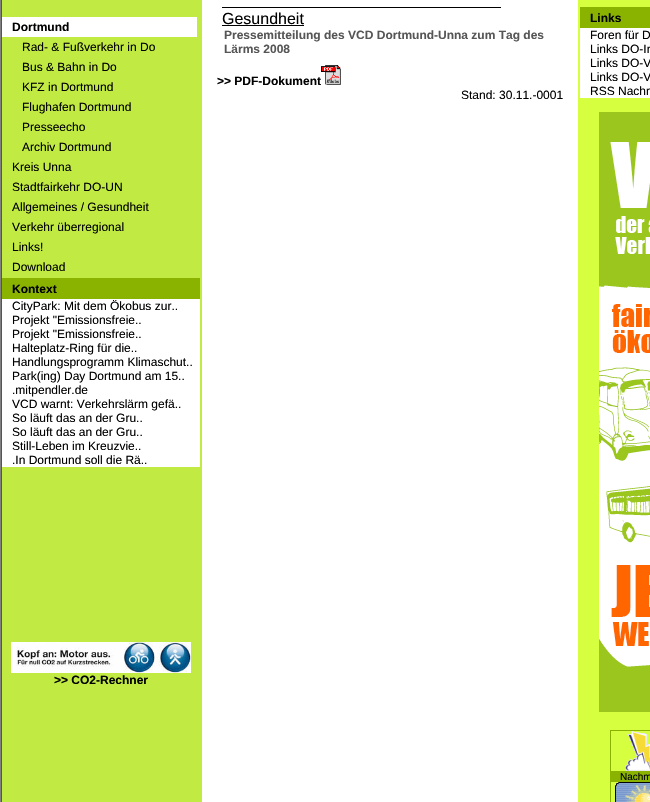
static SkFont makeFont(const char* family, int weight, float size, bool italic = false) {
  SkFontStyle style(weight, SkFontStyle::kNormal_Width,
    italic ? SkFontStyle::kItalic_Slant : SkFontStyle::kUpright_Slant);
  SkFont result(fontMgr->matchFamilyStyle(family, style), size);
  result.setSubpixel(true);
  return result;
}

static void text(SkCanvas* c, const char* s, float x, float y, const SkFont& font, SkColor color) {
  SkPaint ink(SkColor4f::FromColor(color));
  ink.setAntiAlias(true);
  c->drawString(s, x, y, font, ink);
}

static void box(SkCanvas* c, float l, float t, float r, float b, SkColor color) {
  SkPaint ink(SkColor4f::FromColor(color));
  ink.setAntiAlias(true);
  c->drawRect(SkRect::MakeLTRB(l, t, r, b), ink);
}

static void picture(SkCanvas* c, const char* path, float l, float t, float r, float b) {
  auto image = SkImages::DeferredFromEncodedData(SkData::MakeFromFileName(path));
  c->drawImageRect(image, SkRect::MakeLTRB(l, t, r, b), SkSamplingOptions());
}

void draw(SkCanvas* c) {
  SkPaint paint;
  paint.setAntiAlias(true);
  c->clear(0xff808080);
  box(c, 1, 0, 2, 802, 0xff555555);
  box(c, 202, 0, 578, 802, 0xffffffff);
  box(c, 2, 0, 202, 802, 0xffc1ea42);
  box(c, 2, 17, 197, 37, 0xffffffff);
  SkFont face1 = makeFont("Liberation Sans", 700, 12);
  text(c, "Dortmund", 12, 31, face1, 0xff000000);
  SkFont face2 = makeFont("Liberation Sans", 400, 12);
  text(c, "Rad- & Fußverkehr in Do", 22, 51, face2, 0xff000000);
  text(c, "Bus & Bahn in Do", 22, 71, face2, 0xff000000);
  text(c, "KFZ in Dortmund", 22, 91, face2, 0xff000000);
  text(c, "Flughafen Dortmund", 22, 111, face2, 0xff000000);
  text(c, "Presseecho", 22, 131, face2, 0xff000000);
  text(c, "Archiv Dortmund", 22, 151, face2, 0xff000000);
  text(c, "Kreis Unna", 12, 171, face2, 0xff000000);
  text(c, "Stadtfairkehr DO-UN", 12, 191, face2, 0xff000000);
  text(c, "Allgemeines / Gesundheit", 12, 211, face2, 0xff000000);
  text(c, "Verkehr überregional", 12, 231, face2, 0xff000000);
  text(c, "Links!", 12, 251, face2, 0xff000000);
  text(c, "Download", 12, 271, face2, 0xff000000);
  box(c, 2, 278, 200, 299, 0xff8ab300);
  text(c, "Kontext", 12, 293, face1, 0xff000000);
  box(c, 2, 299, 200, 467, 0xffffffff);
  text(c, "CityPark: Mit dem Ökobus zur..", 12, 310, face2, 0xff000000);
  text(c, "Projekt \"Emissionsfreie..", 12, 324, face2, 0xff000000);
  text(c, "Projekt \"Emissionsfreie..", 12, 338, face2, 0xff000000);
  text(c, "Halteplatz-Ring für die..", 12, 352, face2, 0xff000000);
  text(c, "Handlungsprogramm Klimaschut..", 12, 366, face2, 0xff000000);
  text(c, "Park(ing) Day Dortmund am 15..", 12, 380, face2, 0xff000000);
  text(c, ".mitpendler.de", 12, 394, face2, 0xff000000);
  text(c, "VCD warnt: Verkehrslärm gefä..", 12, 408, face2, 0xff000000);
  text(c, "So läuft das an der Gru..", 12, 422, face2, 0xff000000);
  text(c, "So läuft das an der Gru..", 12, 436, face2, 0xff000000);
  text(c, "Still-Leben im Kreuzvie..", 12, 450, face2, 0xff000000);
  text(c, ".In Dortmund soll die Rä..", 12, 464, face2, 0xff000000);
  picture(c, "img_01.png", 11, 642, 191, 673);
  text(c, ">> CO2-Rechner", 54, 684, face1, 0xff000000);
  SkFont face3 = makeFont("Liberation Sans", 400, 16);
  text(c, "Gesundheit", 222, 24, face3, 0xff000000);
  box(c, 222, 7, 501, 8, 0xff000000);
  box(c, 222, 25, 304, 26, 0xff000000);
  text(c, "Pressemitteilung des VCD Dortmund-Unna zum Tag des", 224, 39, face1, 0xff565656);
  text(c, "Lärms 2008", 224, 53, face1, 0xff565656);
  text(c, ">> PDF-Dokument", 217, 85, face1, 0xff000000);
  picture(c, "img_02.png", 321, 65, 341, 85);
  text(c, "Stand: 30.11.-0001", 461, 99, face2, 0xff000000);
  box(c, 578, 0, 650, 802, 0xffd6ff3f);
  box(c, 580, 7, 650, 28, 0xff8ab300);
  text(c, "Links", 590, 22, face1, 0xff000000);
  box(c, 580, 28, 650, 98, 0xffffffff);
  text(c, "Foren für D", 590, 39, face2, 0xff000000);
  text(c, "Links DO-In", 590, 53, face2, 0xff000000);
  text(c, "Links DO-V", 590, 67, face2, 0xff000000);
  text(c, "Links DO-V", 590, 81, face2, 0xff000000);
  text(c, "RSS Nachr", 590, 95, face2, 0xff000000);
  picture(c, "img_03.png", 599, 112, 650, 712);
  box(c, 610, 730, 650, 802, 0xff8ab300);
  box(c, 611, 731, 650, 802, 0xffd6ff3f);
  picture(c, "img_04.png", 625, 731, 650, 771);
  box(c, 611, 771, 650, 782, 0xff8ab300);
  SkFont face4 = makeFont("Liberation Sans", 400, 10);
  text(c, "Nachm", 620, 780, face4, 0xff000000);
  picture(c, "img_05.png", 615, 782, 650, 802);
}
